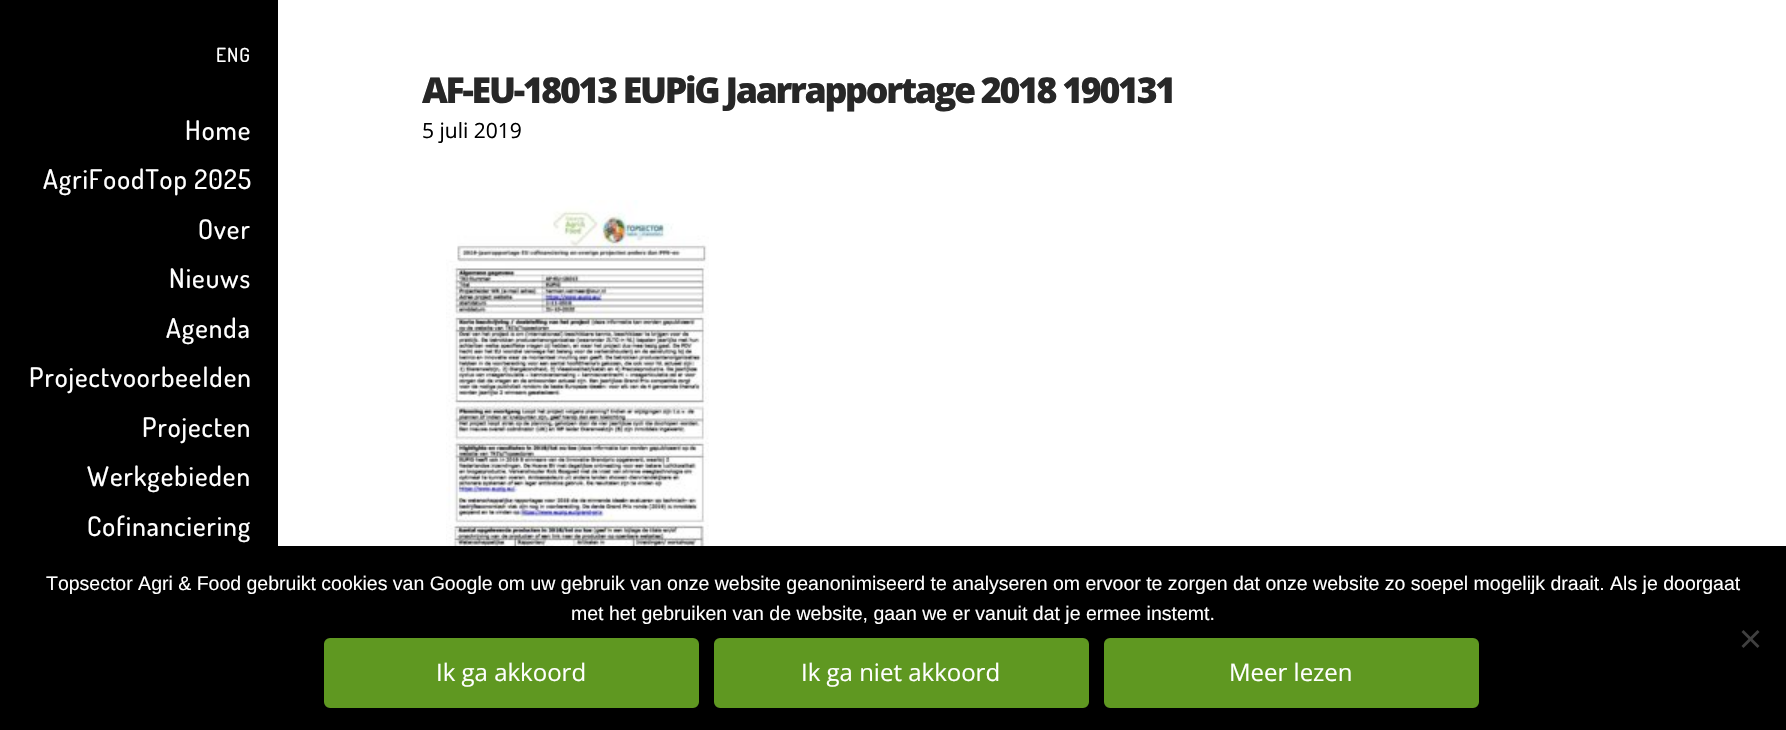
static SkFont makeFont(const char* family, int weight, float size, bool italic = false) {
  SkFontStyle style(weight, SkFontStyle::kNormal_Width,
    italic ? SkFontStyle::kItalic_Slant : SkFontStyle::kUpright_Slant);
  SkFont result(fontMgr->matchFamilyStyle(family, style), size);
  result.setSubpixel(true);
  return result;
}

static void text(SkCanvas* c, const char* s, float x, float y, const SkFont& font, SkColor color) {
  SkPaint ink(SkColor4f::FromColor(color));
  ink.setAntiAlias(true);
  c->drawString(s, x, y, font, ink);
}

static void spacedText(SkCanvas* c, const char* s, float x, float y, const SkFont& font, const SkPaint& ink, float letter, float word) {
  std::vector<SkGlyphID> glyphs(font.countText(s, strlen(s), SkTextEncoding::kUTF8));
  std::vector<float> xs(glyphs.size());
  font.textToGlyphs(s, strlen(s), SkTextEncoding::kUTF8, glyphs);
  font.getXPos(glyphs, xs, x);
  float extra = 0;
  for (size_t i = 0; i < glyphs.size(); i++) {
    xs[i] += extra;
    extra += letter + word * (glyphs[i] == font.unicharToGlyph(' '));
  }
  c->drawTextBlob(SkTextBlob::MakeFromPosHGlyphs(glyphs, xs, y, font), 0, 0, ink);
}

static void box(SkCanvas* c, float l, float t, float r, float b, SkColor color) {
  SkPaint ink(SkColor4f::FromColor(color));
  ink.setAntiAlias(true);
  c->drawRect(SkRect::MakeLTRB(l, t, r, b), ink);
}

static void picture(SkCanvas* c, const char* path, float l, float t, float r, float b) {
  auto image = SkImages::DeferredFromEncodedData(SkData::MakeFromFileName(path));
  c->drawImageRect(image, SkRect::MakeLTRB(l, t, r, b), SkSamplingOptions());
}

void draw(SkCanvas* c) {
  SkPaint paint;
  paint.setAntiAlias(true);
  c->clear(0xffffffff);
  box(c, 0, 0, 278, 546, 0xff000000);
  SkFont face1 = makeFont("Dosis", 500, 19.5f);
  paint.setColor(0xffffffff);
  spacedText(c, "ENG", 216, 62, face1, paint, 1, 0);
  SkFont face2 = makeFont("Dosis", 500, 27);
  spacedText(c, "Home", 185, 140, face2, paint, 1, 0);
  spacedText(c, "AgriFoodTop 2025", 43, 189, face2, paint, 1, 0);
  spacedText(c, "Over", 198, 239, face2, paint, 1, 0);
  spacedText(c, "Nieuws", 169, 288, face2, paint, 1, 0);
  spacedText(c, "Agenda", 166, 338, face2, paint, 1, 0);
  spacedText(c, "Projectvoorbeelden", 29, 387, face2, paint, 1, 0);
  spacedText(c, "Projecten", 142, 437, face2, paint, 1, 0);
  spacedText(c, "Werkgebieden", 87, 486, face2, paint, 1, 0);
  spacedText(c, "Cofinanciering", 87, 536, face2, paint, 1, 0);
  SkFont face3 = makeFont("Open Sans", 800, 35.7f);
  paint.setColor(0xff272727);
  spacedText(c, "AF-EU-18013 EUPiG Jaarrapportage 2018 190131", 422, 103, face3, paint, -2.3f, 0);
  SkFont face4 = makeFont("Open Sans", 400, 21);
  text(c, "5 juli 2019", 422, 138, face4, 0xff000000);
  picture(c, "img_01.png", 446, 200, 709, 546);
  box(c, 0, 546, 1786, 730, 0xff000000);
  SkFont face5 = makeFont("Liberation Sans", 400, 19.5f);
  text(c, "Topsector Agri & Food gebruikt cookies van Google om uw gebruik van onze website geanonimiseerd te analyseren om ervoor te zorgen dat onze website zo soepel mogelijk draait. Als je doorgaat", 46, 590, face5, 0xffffffff);
  text(c, "met het gebruiken van de website, gaan we er vanuit dat je ermee instemt.", 571, 620, face5, 0xffffffff);
  paint.setColor(0xff404040);
  c->drawPath(SkPathBuilder().moveTo(1757.5f, 630).lineTo(1759.5f, 632).lineTo(1743.5f, 648).lineTo(1741.5f, 646).close().detach(), paint);
  c->drawPath(SkPathBuilder().moveTo(1741.5f, 632).lineTo(1743.5f, 630).lineTo(1759.5f, 646).lineTo(1757.5f, 648).close().detach(), paint);
  paint.setColor(0xff5f9821);
  c->drawRoundRect(SkRect::MakeLTRB(325, 639, 698, 707), 5, 5, paint);
  paint.setStyle(SkPaint::kStroke_Style);
  paint.setStrokeWidth(2);
  c->drawRoundRect(SkRect::MakeLTRB(325, 639, 698, 707), 5, 5, paint);
  SkFont face6 = makeFont("Open Sans", 400, 24);
  text(c, "Ik ga akkoord", 436, 681, face6, 0xffffffff);
  paint.setStyle(SkPaint::kFill_Style);
  c->drawRoundRect(SkRect::MakeLTRB(715, 639, 1088, 707), 5, 5, paint);
  paint.setStyle(SkPaint::kStroke_Style);
  c->drawRoundRect(SkRect::MakeLTRB(715, 639, 1088, 707), 5, 5, paint);
  text(c, "Ik ga niet akkoord", 801, 681, face6, 0xffffffff);
  paint.setStyle(SkPaint::kFill_Style);
  c->drawRoundRect(SkRect::MakeLTRB(1105, 639, 1478, 707), 5, 5, paint);
  paint.setStyle(SkPaint::kStroke_Style);
  c->drawRoundRect(SkRect::MakeLTRB(1105, 639, 1478, 707), 5, 5, paint);
  text(c, "Meer lezen", 1229, 681, face6, 0xffffffff);
}
